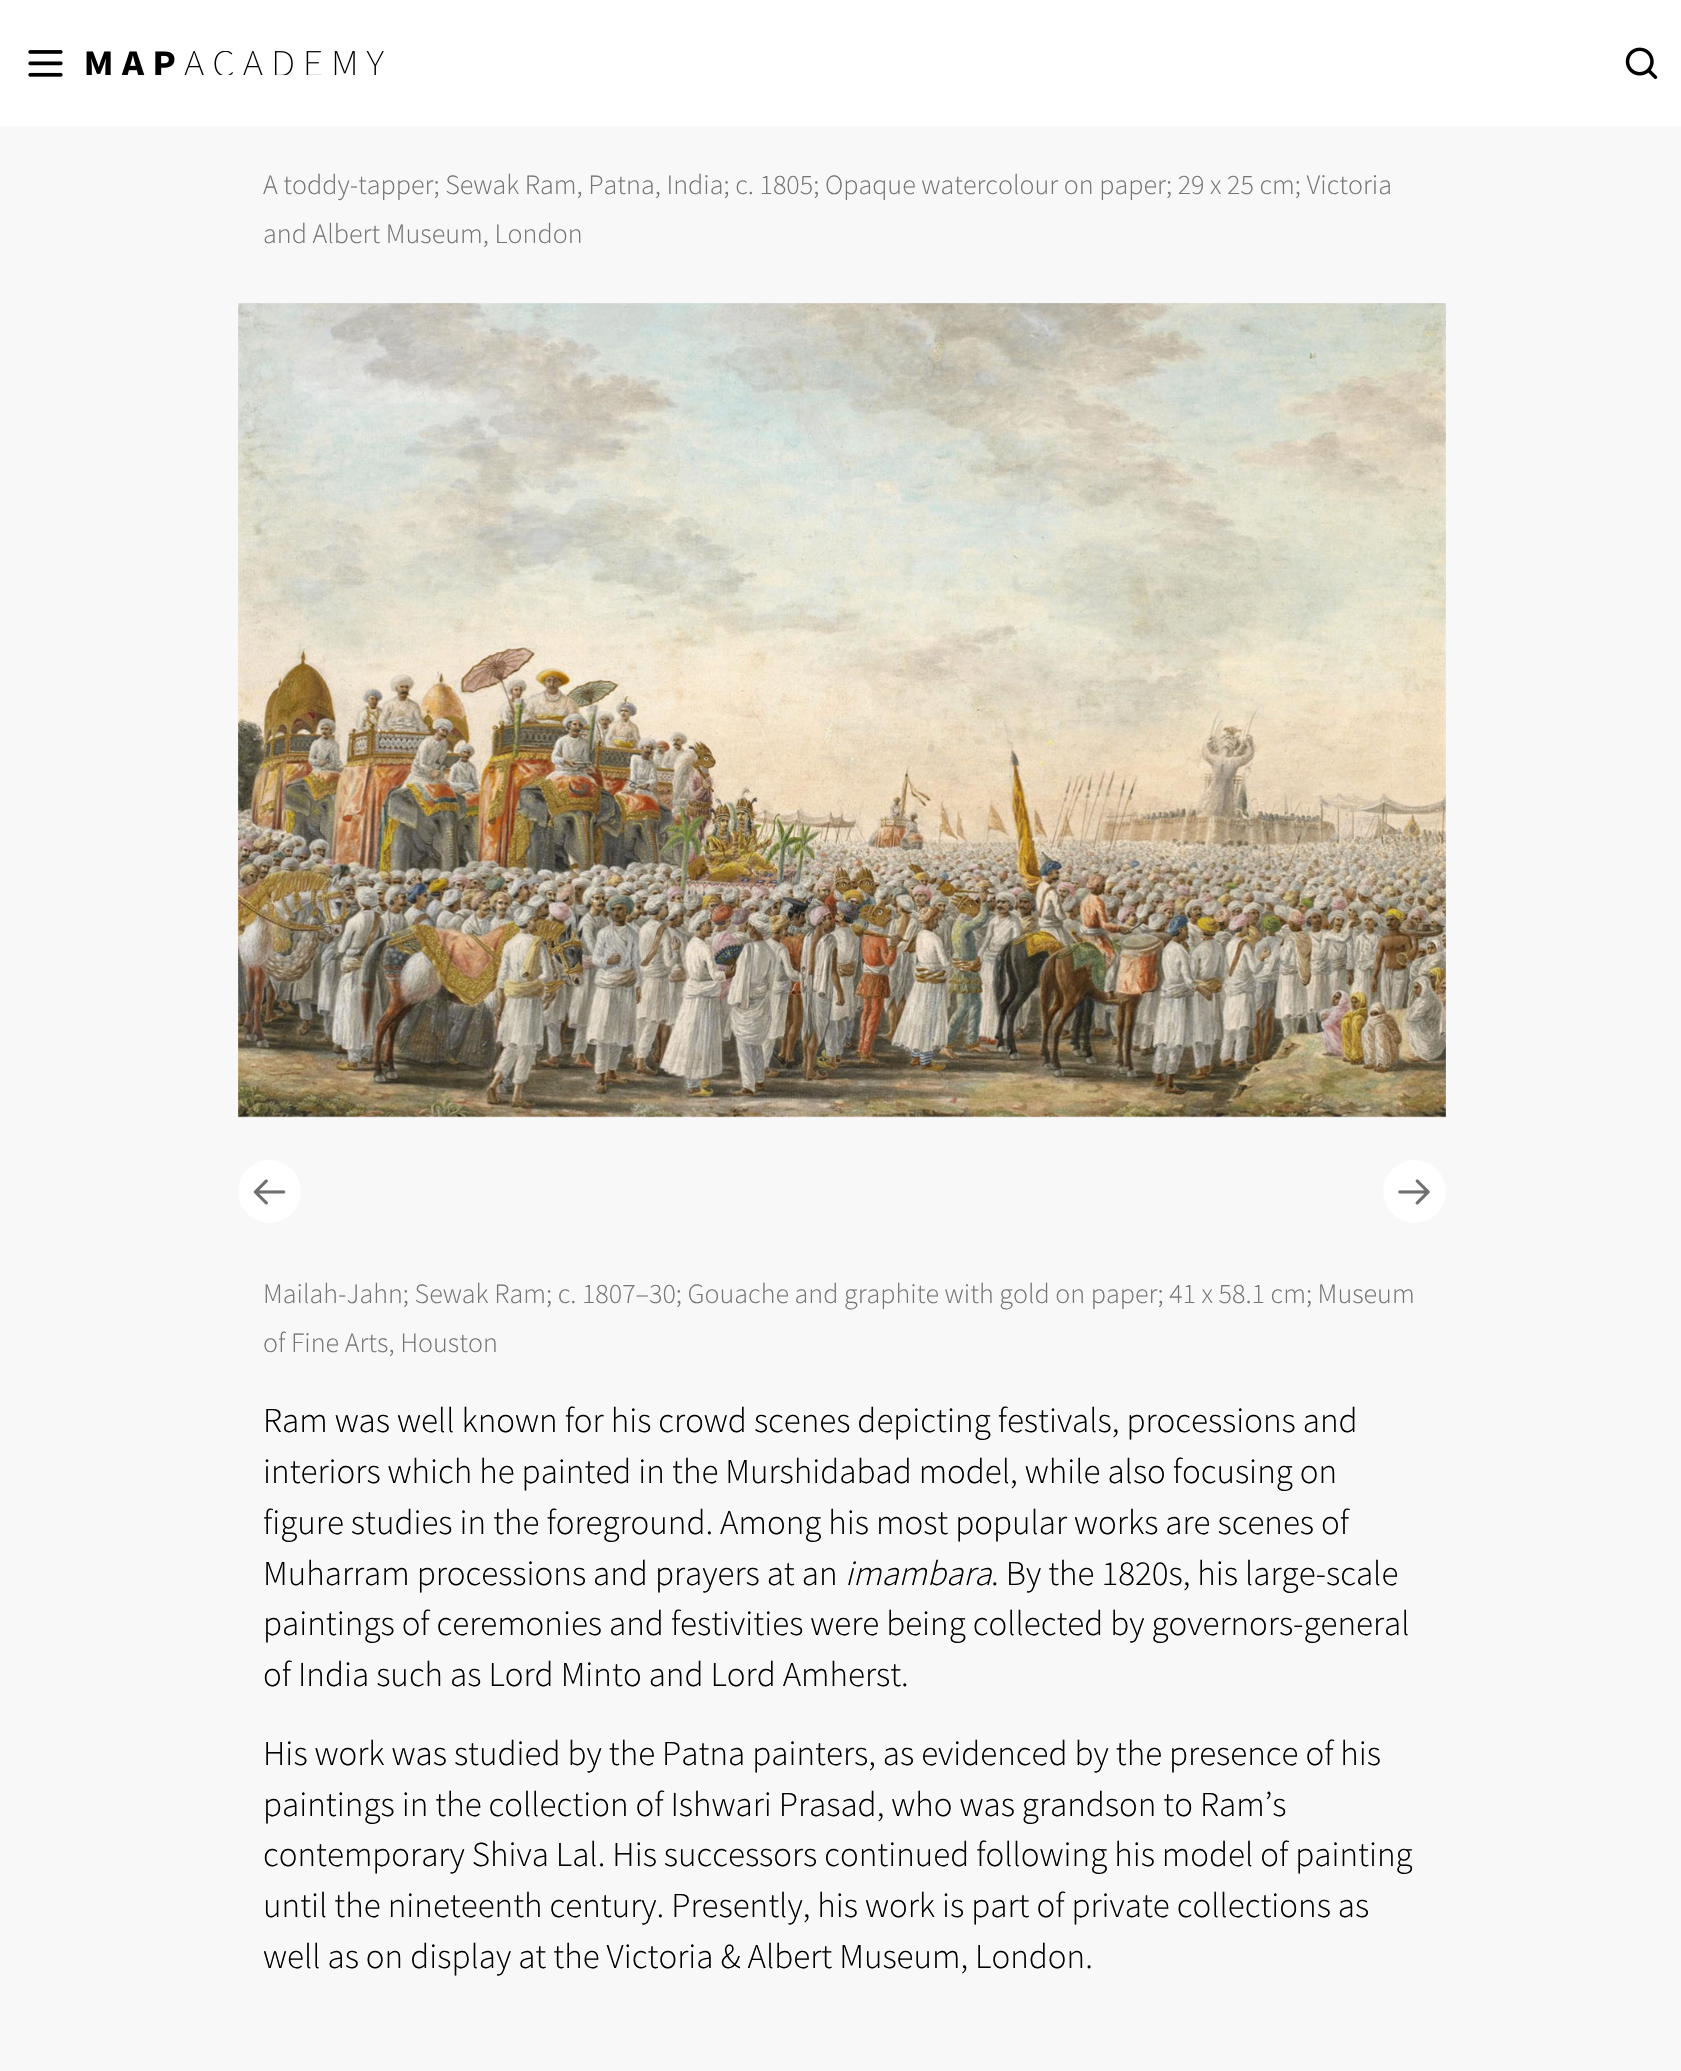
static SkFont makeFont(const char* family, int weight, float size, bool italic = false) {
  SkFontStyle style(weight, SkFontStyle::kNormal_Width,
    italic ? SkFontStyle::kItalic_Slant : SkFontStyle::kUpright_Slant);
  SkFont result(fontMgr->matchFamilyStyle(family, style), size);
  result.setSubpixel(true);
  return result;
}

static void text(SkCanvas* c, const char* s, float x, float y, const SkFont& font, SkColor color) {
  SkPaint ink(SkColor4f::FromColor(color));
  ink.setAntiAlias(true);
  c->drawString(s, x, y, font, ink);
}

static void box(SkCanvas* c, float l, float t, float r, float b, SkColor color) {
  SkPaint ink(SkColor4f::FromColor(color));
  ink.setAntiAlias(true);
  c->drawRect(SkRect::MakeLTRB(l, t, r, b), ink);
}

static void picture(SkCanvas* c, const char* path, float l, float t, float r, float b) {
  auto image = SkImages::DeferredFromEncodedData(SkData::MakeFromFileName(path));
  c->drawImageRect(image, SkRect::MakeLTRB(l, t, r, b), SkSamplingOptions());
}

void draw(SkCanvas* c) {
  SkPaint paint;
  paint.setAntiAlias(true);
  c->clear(0xfff8f8f8);
  box(c, 0, 0, 1681, 126, 0xffffffff);
  picture(c, "img_01.png", 28, 50, 63, 77);
  picture(c, "img_02.png", 86, 51, 384, 75);
  picture(c, "img_03.png", 1625, 47, 1658, 79);
  SkFont face1 = makeFont("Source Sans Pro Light", 300, 28);
  text(c, "A toddy-tapper; Sewak Ram, Patna, India; c. 1805; Opaque watercolour on paper; 29 x 25 cm; Victoria", 263, 194, face1, 0xff757575);
  text(c, "and Albert Museum, London", 263, 243, face1, 0xff757575);
  picture(c, "img_04.png", 238, 303, 1446, 1118);
  paint.setColor(0xffffffff);
  c->drawCircle(269.5f, 1191.5f, 31.5f, paint);
  picture(c, "img_05.png", 253, 1179, 286, 1205);
  c->drawCircle(1414.5f, 1191.5f, 31.5f, paint);
  picture(c, "img_06.png", 1398, 1179, 1430, 1205);
  text(c, "Mailah-Jahn; Sewak Ram; c. 1807–30; Gouache and graphite with gold on paper; 41 x 58.1 cm; Museum", 263, 1303, face1, 0xff757575);
  text(c, "of Fine Arts, Houston", 263, 1352, face1, 0xff757575);
  SkFont face2 = makeFont("Source Sans Pro Light", 300, 35);
  text(c, "Ram was well known for his crowd scenes depicting festivals, processions and", 263, 1432, face2, 0xff000000);
  text(c, "interiors which he painted in the Murshidabad model, while also focusing on", 263, 1483, face2, 0xff000000);
  text(c, "figure studies in the foreground. Among his most popular works are scenes of", 263, 1534, face2, 0xff000000);
  text(c, "Muharram processions and prayers at an", 263, 1585, face2, 0xff000000);
  SkFont face3 = makeFont("Source Sans Pro Light", 300, 35, true);
  text(c, "imambara", 845, 1585, face3, 0xff000000);
  text(c, ". By the 1820s, his large-scale", 991, 1585, face2, 0xff000000);
  text(c, "paintings of ceremonies and festivities were being collected by governors-general", 263, 1635, face2, 0xff000000);
  text(c, "of India such as Lord Minto and Lord Amherst.", 263, 1686, face2, 0xff000000);
  text(c, "His work was studied by the Patna painters, as evidenced by the presence of his", 263, 1765, face2, 0xff000000);
  text(c, "paintings in the collection of Ishwari Prasad, who was grandson to Ram’s", 263, 1816, face2, 0xff000000);
  text(c, "contemporary Shiva Lal. His successors continued following his model of painting", 263, 1866, face2, 0xff000000);
  text(c, "until the nineteenth century. Presently, his work is part of private collections as", 263, 1917, face2, 0xff000000);
  text(c, "well as on display at the Victoria & Albert Museum, London.", 263, 1968, face2, 0xff000000);
}
